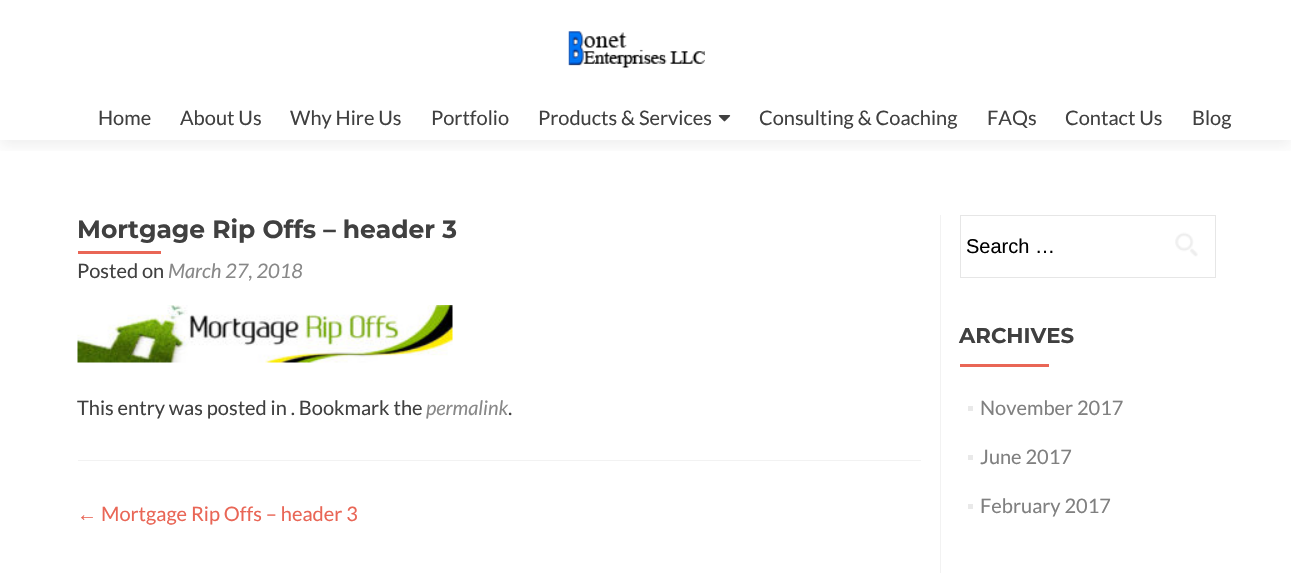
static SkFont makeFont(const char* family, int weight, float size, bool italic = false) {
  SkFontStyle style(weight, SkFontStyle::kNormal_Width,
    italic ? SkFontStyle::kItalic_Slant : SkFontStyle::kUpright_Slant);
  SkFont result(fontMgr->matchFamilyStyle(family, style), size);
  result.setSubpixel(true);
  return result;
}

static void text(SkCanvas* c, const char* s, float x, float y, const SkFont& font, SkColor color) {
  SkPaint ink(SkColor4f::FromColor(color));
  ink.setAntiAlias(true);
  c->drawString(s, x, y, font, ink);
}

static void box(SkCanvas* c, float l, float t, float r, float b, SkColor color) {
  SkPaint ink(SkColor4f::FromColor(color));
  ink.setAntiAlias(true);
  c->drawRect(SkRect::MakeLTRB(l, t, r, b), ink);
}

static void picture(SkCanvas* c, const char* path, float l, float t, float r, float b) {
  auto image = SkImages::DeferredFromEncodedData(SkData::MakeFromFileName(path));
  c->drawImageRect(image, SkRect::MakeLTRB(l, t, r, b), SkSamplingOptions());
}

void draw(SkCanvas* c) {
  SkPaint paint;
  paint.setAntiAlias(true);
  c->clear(0xffffffff);
  c->save();
  c->clipRect(SkRect::MakeLTRB(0, 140, 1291, 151));
  paint.setColor(0x14323232);
  paint.setMaskFilter(SkMaskFilter::MakeBlur(kNormal_SkBlurStyle, 7));
  c->drawRect(SkRect::MakeLTRB(0, 6, 1291, 146), paint);
  paint.setMaskFilter(nullptr);
  c->restore();
  picture(c, "img_01.png", 568, 31, 705, 68);
  SkFont face1 = makeFont("Lato", 400, 20);
  text(c, "Home", 98, 125, face1, 0xff404040);
  text(c, "About Us", 180, 125, face1, 0xff404040);
  text(c, "Why Hire Us", 290, 125, face1, 0xff404040);
  text(c, "Portfolio", 431, 125, face1, 0xff404040);
  text(c, "Products & Services", 538, 125, face1, 0xff404040);
  picture(c, "img_02.png", 718, 115, 731, 122);
  text(c, "Consulting & Coaching", 759, 125, face1, 0xff404040);
  text(c, "FAQs", 987, 125, face1, 0xff404040);
  text(c, "Contact Us", 1065, 125, face1, 0xff404040);
  text(c, "Blog", 1192, 125, face1, 0xff404040);
  box(c, 78, 460, 921, 461, 0xfff2f2f2);
  SkFont face2 = makeFont("Montserrat", 700, 25);
  text(c, "Mortgage Rip Offs – header 3", 77, 238, face2, 0xff404040);
  box(c, 78, 251, 161, 254, 0xffe96656);
  text(c, "Posted on", 77, 278, face1, 0xff404040);
  SkFont face3 = makeFont("Lato", 400, 20, true);
  text(c, "March 27, 2018", 168, 278, face3, 0xff888888);
  picture(c, "img_03.png", 77, 305, 453, 363);
  text(c, "This entry was posted in . Bookmark the", 77, 415, face1, 0xff404040);
  text(c, "permalink", 426, 415, face3, 0xff888888);
  text(c, ".", 508, 415, face1, 0xff404040);
  SkFont face4 = makeFont("Liberation Sans", 400, 20);
  text(c, "←", 77, 521, face4, 0xffe96656);
  text(c, "Mortgage Rip Offs – header 3", 101, 521, face1, 0xffe96656);
  box(c, 940, 215, 941, 573, 0xfff2f2f2);
  paint.setStyle(SkPaint::kStroke_Style);
  paint.setStrokeWidth(1);
  paint.setColor(0xffe6e6e6);
  c->drawRect(SkRect::MakeLTRB(960.5f, 215.5f, 1215.5f, 277.5f), paint);
  text(c, "Search …", 966, 253, face4, 0xff000000);
  picture(c, "img_04.png", 1175, 232, 1198, 257);
  SkFont face5 = makeFont("Montserrat", 700, 21.25f);
  text(c, "ARCHIVES", 959, 343, face5, 0xff404040);
  box(c, 960, 364, 1049, 367, 0xffe96656);
  box(c, 968, 406, 973, 411, 0xffe9e9e9);
  text(c, "November 2017", 980, 415, face1, 0xff808080);
  box(c, 968, 455, 973, 460, 0xffe9e9e9);
  text(c, "June 2017", 980, 464, face1, 0xff808080);
  box(c, 968, 504, 973, 509, 0xffe9e9e9);
  text(c, "February 2017", 980, 513, face1, 0xff808080);
}
